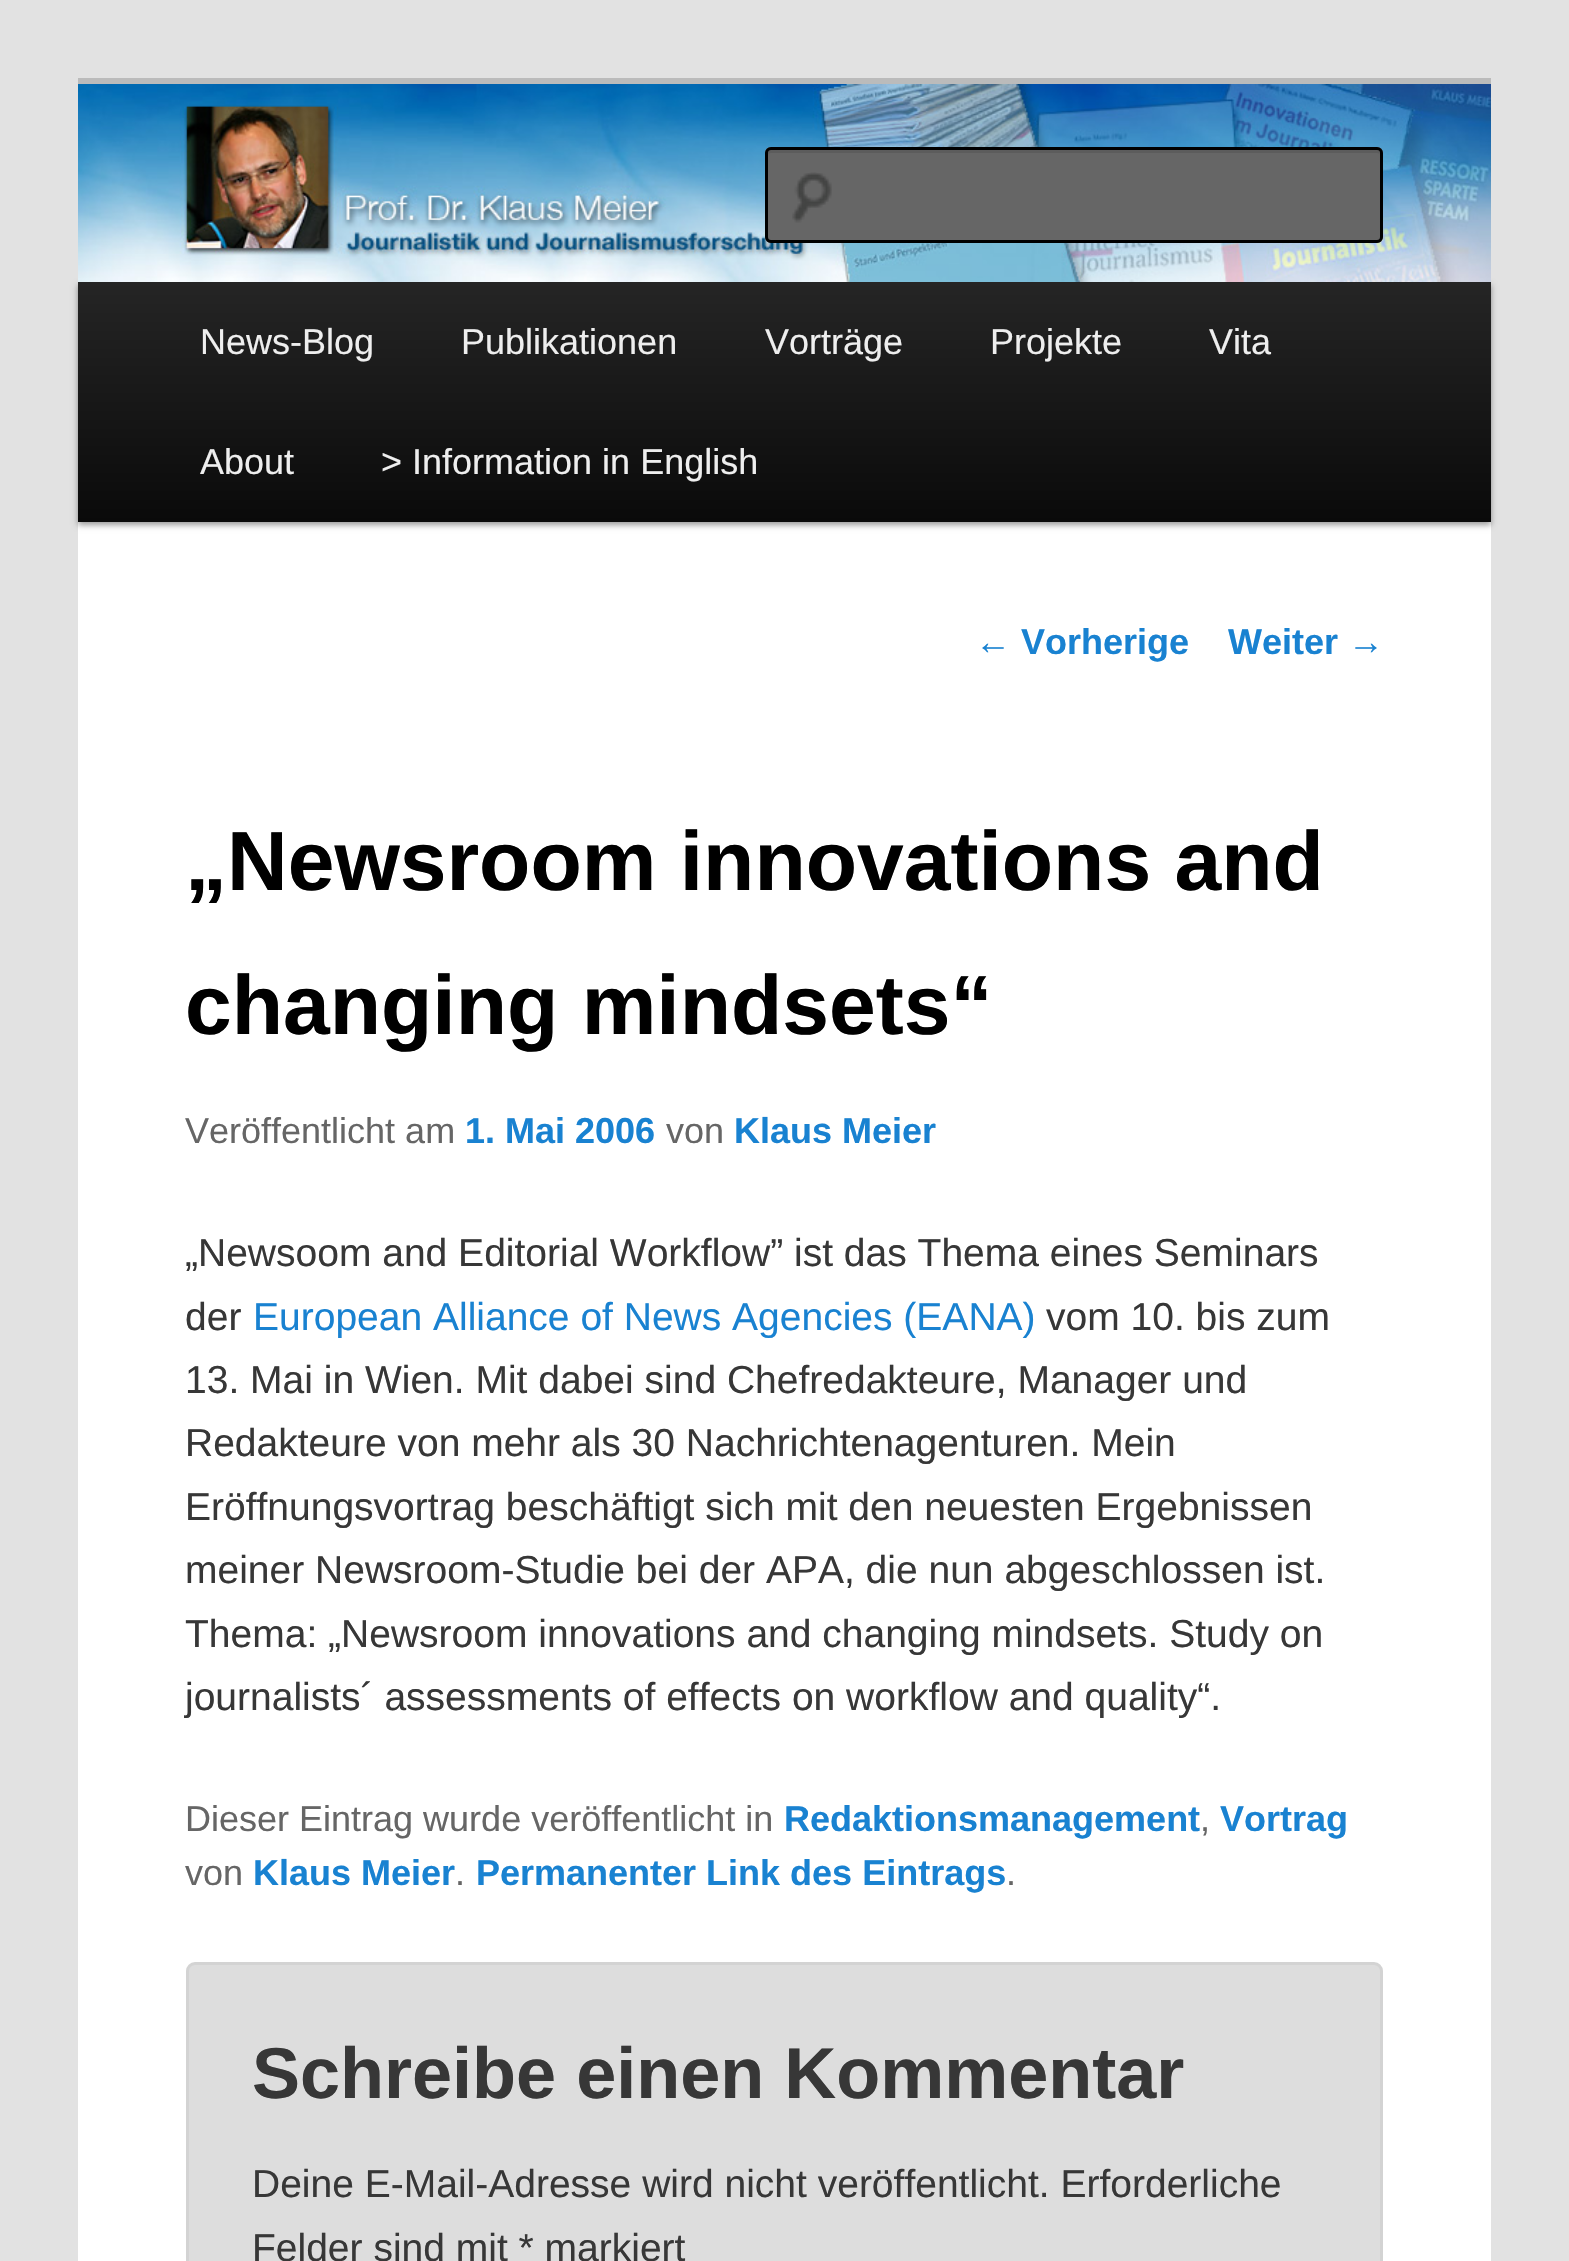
static SkFont makeFont(const char* family, int weight, float size, bool italic = false) {
  SkFontStyle style(weight, SkFontStyle::kNormal_Width,
    italic ? SkFontStyle::kItalic_Slant : SkFontStyle::kUpright_Slant);
  SkFont result(fontMgr->matchFamilyStyle(family, style), size);
  result.setSubpixel(true);
  return result;
}

static void text(SkCanvas* c, const char* s, float x, float y, const SkFont& font, SkColor color) {
  SkPaint ink(SkColor4f::FromColor(color));
  ink.setAntiAlias(true);
  c->drawString(s, x, y, font, ink);
}

static void box(SkCanvas* c, float l, float t, float r, float b, SkColor color) {
  SkPaint ink(SkColor4f::FromColor(color));
  ink.setAntiAlias(true);
  c->drawRect(SkRect::MakeLTRB(l, t, r, b), ink);
}

static void roundBox(SkCanvas* c, float l, float t, float r, float b, float radius, SkColor color) {
  SkPaint ink(SkColor4f::FromColor(color));
  ink.setAntiAlias(true);
  c->drawRoundRect(SkRect::MakeLTRB(l, t, r, b), radius, radius, ink);
}

static void picture(SkCanvas* c, const char* path, float l, float t, float r, float b) {
  auto image = SkImages::DeferredFromEncodedData(SkData::MakeFromFileName(path));
  c->drawImageRect(image, SkRect::MakeLTRB(l, t, r, b), SkSamplingOptions());
}

void draw(SkCanvas* c) {
  SkPaint paint;
  paint.setAntiAlias(true);
  c->clear(0xffe2e2e2);
  box(c, 78, 522, 1491, 2261, 0xffffffff);
  box(c, 78, 78, 1491, 84, 0xffbbbbbb);
  paint.setColor(0x66000000);
  paint.setMaskFilter(SkMaskFilter::MakeBlur(kNormal_SkBlurStyle, 3));
  c->drawRect(SkRect::MakeLTRB(78, 285, 1491, 525), paint);
  paint.setMaskFilter(nullptr);
  picture(c, "img_01.png", 78, 84, 1491, 282);
  roundBox(c, 765, 147, 1383, 243, 6, 0xff666666);
  picture(c, "img_02.png", 792, 172, 832, 223);
  paint.setColor(0xff5c5c5c);
  c->drawPath(SkPathBuilder().moveTo(771, 153).lineTo(1377, 153).cubicTo(1379, 153, 1380, 154, 1380, 156).lineTo(1379, 151).lineTo(1377, 150).lineTo(771, 150).cubicTo(768, 150, 768, 154, 768, 156).cubicTo(768, 154, 769, 153, 771, 153).close().detach(), paint);
  paint.setStyle(SkPaint::kStroke_Style);
  paint.setStrokeWidth(3);
  paint.setColor(0xff000000);
  c->drawRoundRect(SkRect::MakeLTRB(766.5f, 148.5f, 1381.5f, 241.5f), 4.5f, 4.5f, paint);
  paint.setStyle(SkPaint::kFill_Style);
  {
    const SkColor colors[] = {0xff252525, 0xff0a0a0a};
    const float stops[] = {0, 1};
    const SkPoint ends[] = {{785, 282}, {785, 522}};
    paint.setShader(SkGradientShader::MakeLinear(ends, colors, stops, 2, SkTileMode::kClamp));
    paint.setAlpha(255);
  }
  c->drawRect(SkRect::MakeLTRB(78, 282, 1491, 522), paint);
  SkFont face1 = makeFont("Liberation Sans", 400, 36);
  text(c, "News-Blog", 200, 354, face1, 0xffeeeeee);
  text(c, "Publikationen", 461, 354, face1, 0xffeeeeee);
  text(c, "Vorträge", 765, 354, face1, 0xffeeeeee);
  text(c, "Projekte", 990, 354, face1, 0xffeeeeee);
  text(c, "Vita", 1209, 354, face1, 0xffeeeeee);
  text(c, "About", 200, 474, face1, 0xffeeeeee);
  text(c, "> Information in English", 381, 474, face1, 0xffeeeeee);
  text(c, "←", 975, 654, face1, 0xff1982d1);
  SkFont face2 = makeFont("Liberation Sans", 700, 36);
  text(c, "Vorherige", 1021, 654, face2, 0xff1982d1);
  text(c, "Weiter", 1228, 654, face2, 0xff1982d1);
  text(c, "→", 1348, 654, face1, 0xff1982d1);
  SkFont face3 = makeFont("Liberation Sans", 700, 84);
  text(c, "„Newsroom innovations and", 185, 890, face3, 0xff000000);
  text(c, "changing mindsets“", 185, 1034, face3, 0xff000000);
  text(c, "Veröffentlicht am", 185, 1143, face1, 0xff666666);
  text(c, "1. Mai 2006", 465, 1143, face2, 0xff1982d1);
  text(c, "von", 666, 1143, face1, 0xff666666);
  text(c, "Klaus Meier", 734, 1143, face2, 0xff1982d1);
  SkFont face4 = makeFont("Liberation Sans", 400, 39);
  text(c, "„Newsoom and Editorial Workflow” ist das Thema eines Seminars", 185, 1266, face4, 0xff373737);
  text(c, "der", 185, 1330, face4, 0xff373737);
  text(c, "European Alliance of News Agencies (EANA)", 253, 1330, face4, 0xff1982d1);
  text(c, "vom 10. bis zum", 1046, 1330, face4, 0xff373737);
  text(c, "13. Mai in Wien. Mit dabei sind Chefredakteure, Manager und", 185, 1393, face4, 0xff373737);
  text(c, "Redakteure von mehr als 30 Nachrichtenagenturen. Mein", 185, 1456, face4, 0xff373737);
  text(c, "Eröffnungsvortrag beschäftigt sich mit den neuesten Ergebnissen", 185, 1520, face4, 0xff373737);
  text(c, "meiner Newsroom-Studie bei der APA, die nun abgeschlossen ist.", 185, 1583, face4, 0xff373737);
  text(c, "Thema: „Newsroom innovations and changing mindsets. Study on", 185, 1647, face4, 0xff373737);
  text(c, "journalists´ assessments of effects on workflow and quality“.", 185, 1710, face4, 0xff373737);
  text(c, "Dieser Eintrag wurde veröffentlicht in", 185, 1831, face1, 0xff666666);
  text(c, "Redaktionsmanagement", 784, 1831, face2, 0xff1982d1);
  text(c, ",", 1200, 1831, face1, 0xff666666);
  text(c, "Vortrag", 1220, 1831, face2, 0xff1982d1);
  text(c, "von", 185, 1885, face1, 0xff666666);
  text(c, "Klaus Meier", 253, 1885, face2, 0xff1982d1);
  text(c, ".", 455, 1885, face1, 0xff666666);
  text(c, "Permanenter Link des Eintrags", 476, 1885, face2, 0xff1982d1);
  text(c, ".", 1006, 1885, face1, 0xff666666);
  paint.setShader(nullptr);
  paint.setColor(0xffdddddd);
  c->drawRoundRect(SkRect::MakeLTRB(187.5f, 1963.5f, 1381.5f, 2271.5f), 7.5f, 7.5f, paint);
  paint.setStyle(SkPaint::kStroke_Style);
  paint.setColor(0xffd3d3d3);
  c->drawRoundRect(SkRect::MakeLTRB(187.5f, 1963.5f, 1381.5f, 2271.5f), 7.5f, 7.5f, paint);
  SkFont face5 = makeFont("Liberation Sans", 700, 72);
  text(c, "Schreibe einen Kommentar", 252, 2098, face5, 0xff373737);
  text(c, "Deine E-Mail-Adresse wird nicht veröffentlicht. Erforderliche", 252, 2197, face4, 0xff373737);
  text(c, "Felder sind mit * markiert", 252, 2261, face4, 0xff373737);
}
